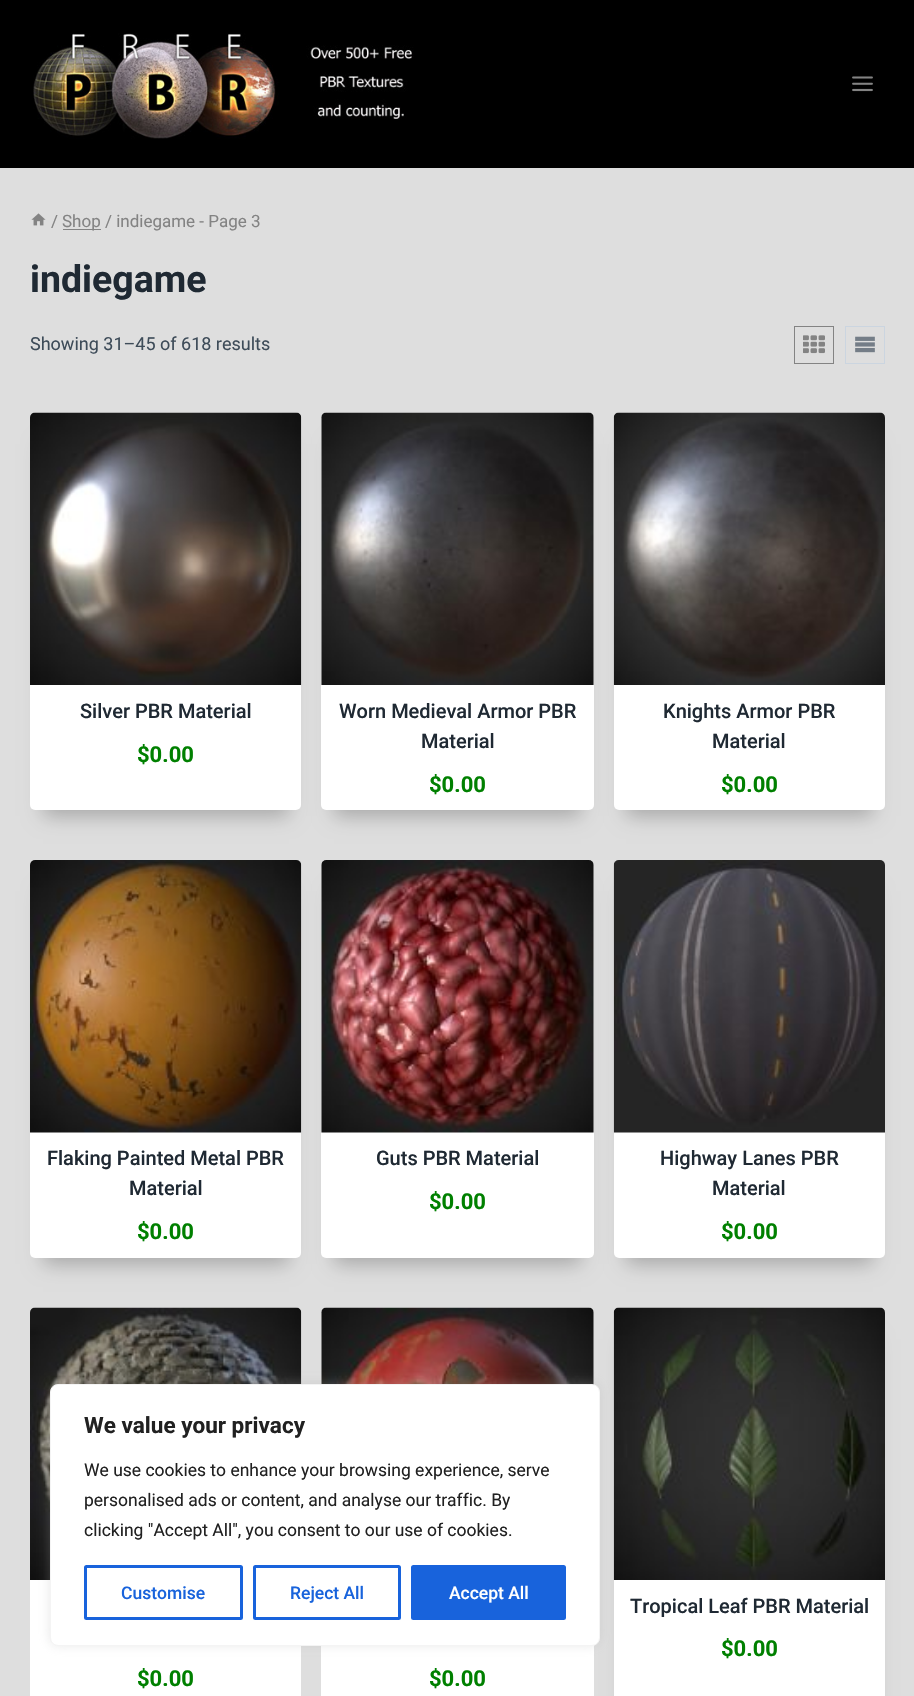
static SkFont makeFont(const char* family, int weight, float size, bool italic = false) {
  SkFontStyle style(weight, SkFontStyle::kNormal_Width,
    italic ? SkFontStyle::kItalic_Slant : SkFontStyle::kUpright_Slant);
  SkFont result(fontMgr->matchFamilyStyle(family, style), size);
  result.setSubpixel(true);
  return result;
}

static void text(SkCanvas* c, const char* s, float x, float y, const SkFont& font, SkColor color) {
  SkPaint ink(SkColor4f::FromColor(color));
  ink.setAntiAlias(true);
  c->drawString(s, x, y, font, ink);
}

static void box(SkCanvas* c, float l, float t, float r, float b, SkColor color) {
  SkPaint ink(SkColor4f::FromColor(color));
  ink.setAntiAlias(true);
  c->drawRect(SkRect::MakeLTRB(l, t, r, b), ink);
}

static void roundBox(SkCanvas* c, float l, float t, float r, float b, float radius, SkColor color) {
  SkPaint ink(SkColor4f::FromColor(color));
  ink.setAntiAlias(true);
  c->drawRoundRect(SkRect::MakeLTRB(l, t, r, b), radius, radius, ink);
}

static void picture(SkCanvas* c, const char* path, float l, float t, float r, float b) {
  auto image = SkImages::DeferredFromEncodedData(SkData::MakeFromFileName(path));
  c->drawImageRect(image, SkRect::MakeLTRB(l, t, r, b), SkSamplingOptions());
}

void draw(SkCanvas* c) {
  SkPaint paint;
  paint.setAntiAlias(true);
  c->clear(0xffdedede);
  box(c, 0, 0, 914, 168, 0xff000000);
  picture(c, "img_01.png", 33, 33, 414, 139);
  picture(c, "img_02.png", 852, 76, 873, 92);
  picture(c, "img_03.png", 31, 213, 46, 226);
  SkFont face1 = makeFont("Roboto", 400, 17);
  text(c, "/", 51, 227, face1, 0xff838383);
  box(c, 63, 229, 101, 230, 0xff838383);
  text(c, "Shop / indiegame - Page 3", 62, 227, face1, 0xff838383);
  SkFont face2 = makeFont("Roboto", 700, 37.5f);
  text(c, "indiegame", 30, 292, face2, 0xff1f2933);
  SkFont face3 = makeFont("Roboto", 400, 18);
  text(c, "Showing 31–45 of 618 results", 30, 350, face3, 0xff3e4c59);
  paint.setStyle(SkPaint::kStroke_Style);
  paint.setStrokeWidth(1);
  paint.setColor(0xff838383);
  c->drawRect(SkRect::MakeLTRB(794.5f, 326.5f, 833.5f, 363.5f), paint);
  picture(c, "img_04.png", 803, 335, 825, 354);
  paint.setColor(0xffcbd5e0);
  c->drawRect(SkRect::MakeLTRB(845.5f, 326.5f, 884.5f, 363.5f), paint);
  picture(c, "img_05.png", 855, 336, 875, 353);
  paint.setStyle(SkPaint::kFill_Style);
  paint.setColor(0x40000000);
  paint.setMaskFilter(SkMaskFilter::MakeBlur(kNormal_SkBlurStyle, 9.5f));
  c->drawRect(SkRect::MakeLTRB(43, 444, 289, 816), paint);
  paint.setMaskFilter(nullptr);
  roundBox(c, 30, 413, 301, 810, 5, 0xffffffff);
  picture(c, "img_06.png", 30, 412, 302, 685);
  SkFont face4 = makeFont("Roboto", 500, 20);
  text(c, "Silver PBR Material", 80, 718, face4, 0xff1f2933);
  SkFont face5 = makeFont("Roboto", 700, 22);
  text(c, "$0.00", 137, 762, face5, 0xff008000);
  paint.setMaskFilter(SkMaskFilter::MakeBlur(kNormal_SkBlurStyle, 9.5f));
  c->drawRect(SkRect::MakeLTRB(334, 444, 581, 816), paint);
  paint.setMaskFilter(nullptr);
  roundBox(c, 321, 413, 594, 810, 5, 0xffffffff);
  picture(c, "img_07.png", 321, 412, 594, 685);
  text(c, "Worn Medieval Armor PBR", 339, 718, face4, 0xff1f2933);
  text(c, "Material", 421, 748, face4, 0xff1f2933);
  text(c, "$0.00", 429, 792, face5, 0xff008000);
  paint.setMaskFilter(SkMaskFilter::MakeBlur(kNormal_SkBlurStyle, 9.5f));
  c->drawRect(SkRect::MakeLTRB(626, 444, 873, 816), paint);
  paint.setMaskFilter(nullptr);
  roundBox(c, 614, 413, 885, 810, 5, 0xffffffff);
  picture(c, "img_08.png", 613, 412, 885, 685);
  text(c, "Knights Armor PBR", 663, 718, face4, 0xff1f2933);
  text(c, "Material", 712, 748, face4, 0xff1f2933);
  text(c, "$0.00", 721, 792, face5, 0xff008000);
  paint.setMaskFilter(SkMaskFilter::MakeBlur(kNormal_SkBlurStyle, 9.5f));
  c->drawRect(SkRect::MakeLTRB(43, 891, 289, 1264), paint);
  paint.setMaskFilter(nullptr);
  roundBox(c, 30, 860, 301, 1258, 5, 0xffffffff);
  picture(c, "img_09.png", 30, 860, 302, 1133);
  text(c, "Flaking Painted Metal PBR", 47, 1165, face4, 0xff1f2933);
  text(c, "Material", 129, 1195, face4, 0xff1f2933);
  text(c, "$0.00", 137, 1239, face5, 0xff008000);
  paint.setMaskFilter(SkMaskFilter::MakeBlur(kNormal_SkBlurStyle, 9.5f));
  c->drawRect(SkRect::MakeLTRB(334, 891, 581, 1264), paint);
  paint.setMaskFilter(nullptr);
  roundBox(c, 321, 860, 594, 1258, 5, 0xffffffff);
  picture(c, "img_10.png", 321, 860, 594, 1133);
  text(c, "Guts PBR Material", 376, 1165, face4, 0xff1f2933);
  text(c, "$0.00", 429, 1209, face5, 0xff008000);
  paint.setMaskFilter(SkMaskFilter::MakeBlur(kNormal_SkBlurStyle, 9.5f));
  c->drawRect(SkRect::MakeLTRB(626, 891, 873, 1264), paint);
  paint.setMaskFilter(nullptr);
  roundBox(c, 614, 860, 885, 1258, 5, 0xffffffff);
  picture(c, "img_11.png", 613, 860, 885, 1133);
  text(c, "Highway Lanes PBR", 660, 1165, face4, 0xff1f2933);
  text(c, "Material", 712, 1195, face4, 0xff1f2933);
  text(c, "$0.00", 721, 1239, face5, 0xff008000);
  paint.setMaskFilter(SkMaskFilter::MakeBlur(kNormal_SkBlurStyle, 9.5f));
  c->drawRect(SkRect::MakeLTRB(626, 1339, 873, 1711), paint);
  paint.setMaskFilter(nullptr);
  roundBox(c, 614, 1308, 885, 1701, 5, 0xffffffff);
  picture(c, "img_12.png", 613, 1307, 885, 1580);
  text(c, "Tropical Leaf PBR Material", 630, 1613, face4, 0xff1f2933);
  text(c, "$0.00", 721, 1656, face5, 0xff008000);
  roundBox(c, 30, 1308, 301, 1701, 5, 0xffffffff);
  picture(c, "img_13.png", 30, 1307, 302, 1580);
  text(c, "$0.00", 137, 1686, face5, 0xff008000);
  roundBox(c, 321, 1308, 594, 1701, 5, 0xffffffff);
  picture(c, "img_14.png", 321, 1307, 594, 1385);
  text(c, "$0.00", 429, 1686, face5, 0xff008000);
  paint.setColor(0x4dacabab);
  paint.setMaskFilter(SkMaskFilter::MakeBlur(kNormal_SkBlurStyle, 6));
  c->drawRoundRect(SkRect::MakeLTRB(50, 1383, 600, 1645), 8, 8, paint);
  paint.setMaskFilter(nullptr);
  paint.setColor(0xffffffff);
  c->drawRoundRect(SkRect::MakeLTRB(50.5f, 1384.5f, 599.5f, 1645.5f), 7.5f, 7.5f, paint);
  paint.setStyle(SkPaint::kStroke_Style);
  paint.setColor(0xfff4f4f4);
  c->drawRoundRect(SkRect::MakeLTRB(50.5f, 1384.5f, 599.5f, 1645.5f), 7.5f, 7.5f, paint);
  SkFont face6 = makeFont("Roboto", 700, 22.5f);
  text(c, "We value your privacy", 84, 1433, face6, 0xff212121);
  SkFont face7 = makeFont("Roboto", 400, 17.5f);
  text(c, "We use cookies to enhance your browsing experience, serve", 84, 1476, face7, 0xff212121);
  text(c, "personalised ads or content, and analyse our traffic. By", 84, 1506, face7, 0xff212121);
  text(c, "clicking \"Accept All\", you consent to our use of cookies.", 84, 1536, face7, 0xff212121);
  paint.setStrokeWidth(3);
  paint.setColor(0xff1863dc);
  c->drawRoundRect(SkRect::MakeLTRB(85.5f, 1566.5f, 241.5f, 1618.5f), 1, 1, paint);
  SkFont face8 = makeFont("Roboto", 500, 17.5f);
  text(c, "Customise", 121, 1599, face8, 0xff1863dc);
  c->drawRoundRect(SkRect::MakeLTRB(254.5f, 1566.5f, 399.5f, 1618.5f), 1, 1, paint);
  text(c, "Reject All", 290, 1599, face8, 0xff1863dc);
  paint.setStyle(SkPaint::kFill_Style);
  c->drawRoundRect(SkRect::MakeLTRB(412.5f, 1566.5f, 564.5f, 1618.5f), 1, 1, paint);
  paint.setStyle(SkPaint::kStroke_Style);
  c->drawRoundRect(SkRect::MakeLTRB(412.5f, 1566.5f, 564.5f, 1618.5f), 1, 1, paint);
  text(c, "Accept All", 449, 1599, face8, 0xffffffff);
}
